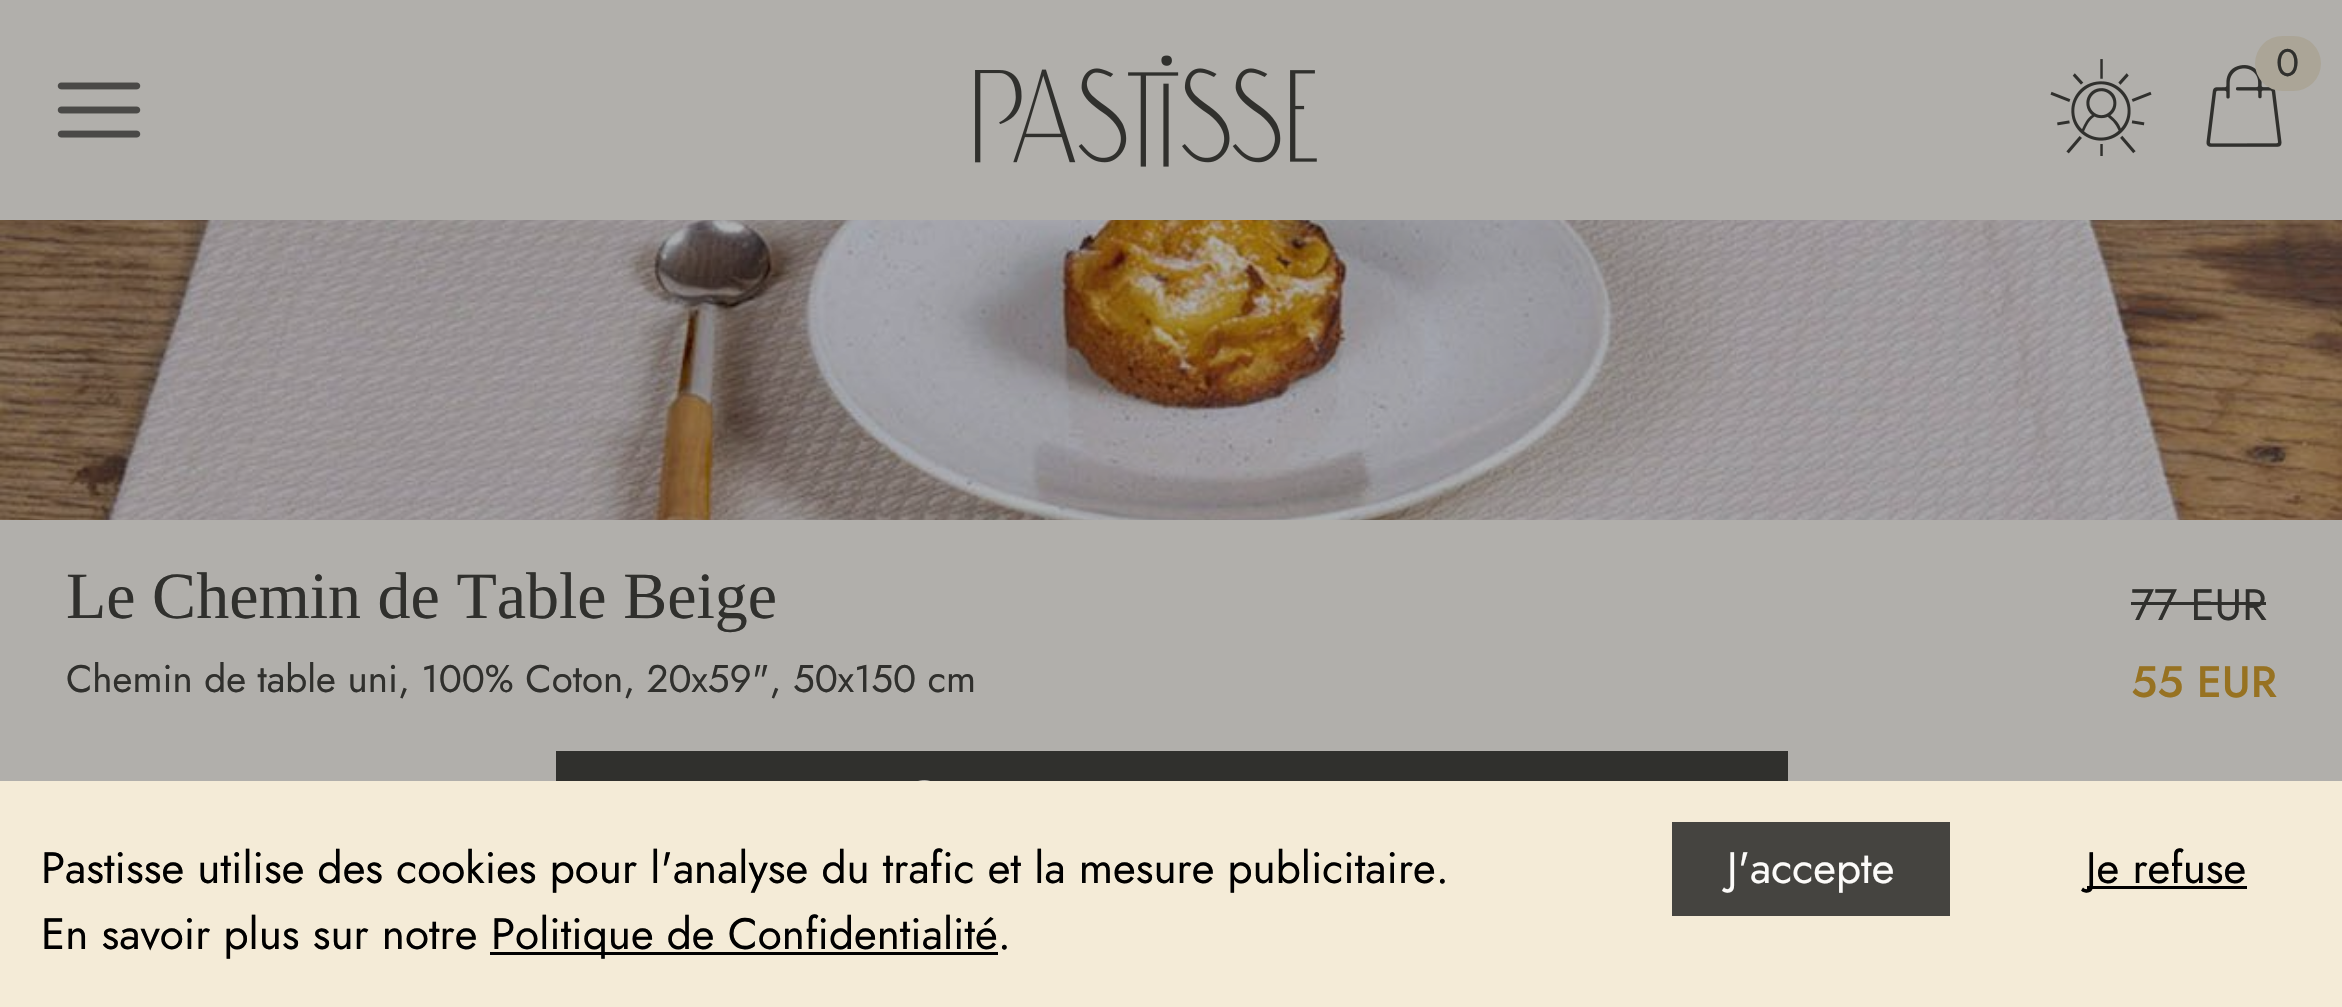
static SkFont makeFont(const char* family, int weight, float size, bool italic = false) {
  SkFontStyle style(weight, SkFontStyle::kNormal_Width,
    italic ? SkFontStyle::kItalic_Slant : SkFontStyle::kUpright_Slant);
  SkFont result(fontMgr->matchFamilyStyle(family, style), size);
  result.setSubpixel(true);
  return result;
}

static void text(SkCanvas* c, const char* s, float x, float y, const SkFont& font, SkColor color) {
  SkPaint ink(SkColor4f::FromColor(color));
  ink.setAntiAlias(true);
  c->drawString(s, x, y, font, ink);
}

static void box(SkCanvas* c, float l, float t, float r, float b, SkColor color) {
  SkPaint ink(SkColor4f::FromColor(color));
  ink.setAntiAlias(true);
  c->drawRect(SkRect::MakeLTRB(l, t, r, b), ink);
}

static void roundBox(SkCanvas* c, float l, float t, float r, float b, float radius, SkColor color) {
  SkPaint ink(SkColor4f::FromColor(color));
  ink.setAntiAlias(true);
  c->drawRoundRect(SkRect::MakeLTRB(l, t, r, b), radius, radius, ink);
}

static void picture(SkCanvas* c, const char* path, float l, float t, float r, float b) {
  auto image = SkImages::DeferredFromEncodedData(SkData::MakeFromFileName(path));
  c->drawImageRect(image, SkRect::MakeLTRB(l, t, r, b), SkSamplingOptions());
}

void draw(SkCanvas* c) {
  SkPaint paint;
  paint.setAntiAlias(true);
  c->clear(0xffffffff);
  box(c, 0, 0, 2342, 220, 0xffb1afab);
  picture(c, "img_01.png", 57, 82, 141, 138);
  picture(c, "img_02.png", 975, 55, 1317, 167);
  picture(c, "img_03.png", 2050, 59, 2152, 156);
  picture(c, "img_04.png", 2206, 65, 2282, 147);
  roundBox(c, 2255, 36, 2321, 91, 27.5f, 0xffaba597);
  SkFont face1 = makeFont("Jost", 400, 38.5f);
  text(c, "0", 2276, 76, face1, 0xff30302d);
  picture(c, "img_05.png", 0, 220, 2342, 520);
  box(c, 0, 520, 2342, 781, 0xffb1afab);
  SkFont face2 = makeFont("Liberation Serif", 400, 66);
  text(c, "Le Chemin de Table Beige", 66, 618, face2, 0xff30302d);
  text(c, "Chemin de table uni, 100% Coton, 20x59\", 50x150 cm", 66, 692, face1, 0xff30302d);
  SkFont face3 = makeFont("Jost", 400, 44);
  text(c, "77 EUR", 2131, 620, face3, 0xff30302d);
  box(c, 2131, 602, 2266, 605, 0xff30302d);
  SkFont face4 = makeFont("Jost", 500, 44);
  text(c, "55 EUR", 2131, 697, face4, 0xff977222);
  box(c, 556, 751, 1788, 781, 0xff30302d);
  picture(c, "img_06.png", 918, 780, 930, 781);
  box(c, 0, 781, 2342, 1007, 0xfff4ebd7);
  text(c, "Pastisse utilise des cookies pour l'analyse du trafic et la mesure publicitaire.", 41, 883, face3, 0xff000000);
  text(c, "En savoir plus sur notre", 41, 949, face3, 0xff000000);
  box(c, 490, 952, 998, 955, 0xff000000);
  text(c, "Politique de Confidentialité.", 491, 949, face3, 0xff000000);
  box(c, 1672, 822, 1950, 916, 0xff454440);
  text(c, "J'accepte", 1727, 883, face3, 0xfffcfbf9);
  box(c, 2087, 886, 2247, 889, 0xff000000);
  text(c, "Je refuse", 2086, 883, face3, 0xff000000);
}
